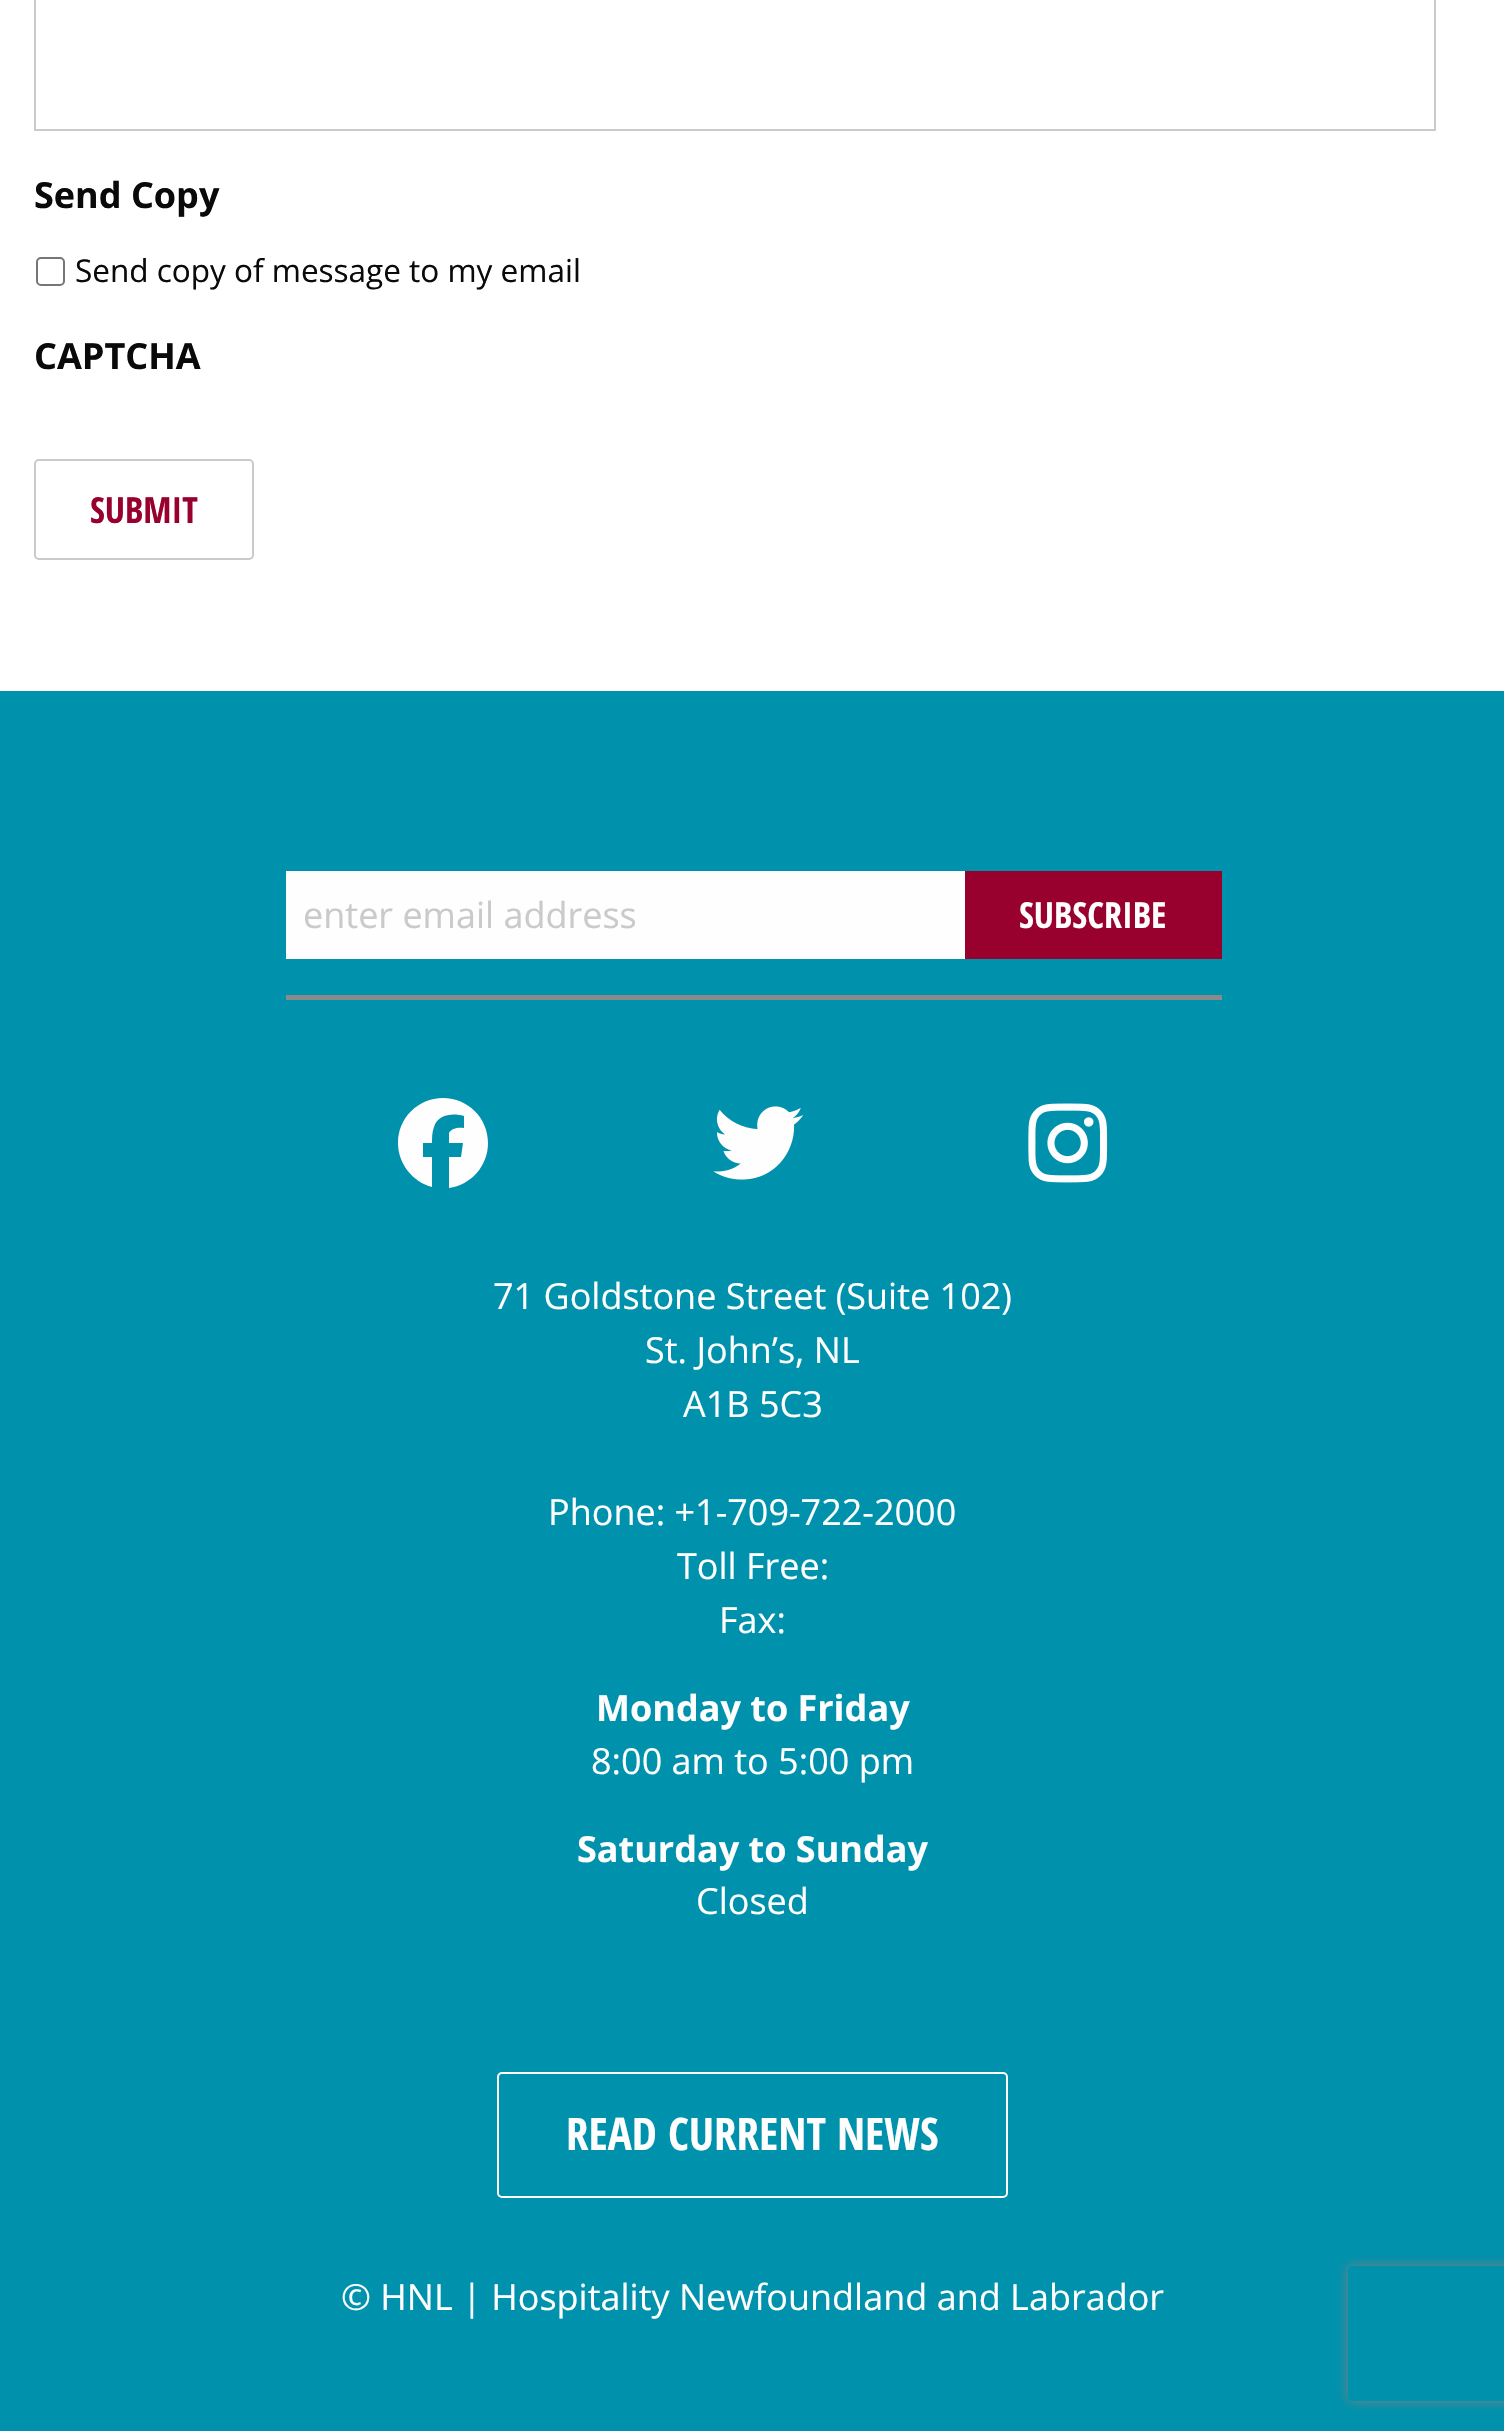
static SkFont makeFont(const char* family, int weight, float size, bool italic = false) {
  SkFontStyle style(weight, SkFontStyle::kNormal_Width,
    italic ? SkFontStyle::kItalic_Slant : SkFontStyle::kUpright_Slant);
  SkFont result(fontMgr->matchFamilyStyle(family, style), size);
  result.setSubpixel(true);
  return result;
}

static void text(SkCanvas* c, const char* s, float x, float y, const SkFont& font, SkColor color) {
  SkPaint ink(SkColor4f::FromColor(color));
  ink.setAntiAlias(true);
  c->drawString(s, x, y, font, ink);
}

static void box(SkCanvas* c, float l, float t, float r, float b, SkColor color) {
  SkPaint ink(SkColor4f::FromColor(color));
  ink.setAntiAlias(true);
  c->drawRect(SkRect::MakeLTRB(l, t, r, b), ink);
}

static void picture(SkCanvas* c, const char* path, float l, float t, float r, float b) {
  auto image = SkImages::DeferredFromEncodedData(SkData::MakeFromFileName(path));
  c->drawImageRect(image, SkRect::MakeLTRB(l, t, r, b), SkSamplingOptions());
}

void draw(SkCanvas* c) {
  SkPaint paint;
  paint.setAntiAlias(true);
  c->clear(0xffffffff);
  paint.setStyle(SkPaint::kStroke_Style);
  paint.setStrokeWidth(2);
  paint.setColor(0xffcacaca);
  c->drawRect(SkRect::MakeLTRB(35, -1, 1435, 130), paint);
  SkFont face1 = makeFont("Open Sans", 700, 36);
  text(c, "Send Copy", 34, 208, face1, 0xff0a0a0a);
  paint.setColor(0xff767676);
  c->drawRoundRect(SkRect::MakeLTRB(37, 258, 64, 285), 4, 4, paint);
  SkFont face2 = makeFont("Open Sans", 400, 31.5f);
  text(c, "Send copy of message to my email", 75, 282, face2, 0xff0a0a0a);
  text(c, "CAPTCHA", 34, 369, face1, 0xff0a0a0a);
  box(c, 0, 691, 1504, 2431, 0xff0091ac);
  c->save();
  c->clipPath(SkPathBuilder(SkPathFillType::kEvenOdd).moveTo(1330, 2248).lineTo(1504, 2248).lineTo(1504, 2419).lineTo(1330, 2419).close().moveTo(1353, 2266).lineTo(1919, 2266).cubicTo(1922, 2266, 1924, 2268, 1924, 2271).lineTo(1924, 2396).cubicTo(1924, 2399, 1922, 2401, 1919, 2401).lineTo(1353, 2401).cubicTo(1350, 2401, 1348, 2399, 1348, 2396).lineTo(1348, 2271).cubicTo(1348, 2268, 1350, 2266, 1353, 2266).close().detach(), true);
  paint.setStyle(SkPaint::kFill_Style);
  paint.setColor(0xff808080);
  paint.setMaskFilter(SkMaskFilter::MakeBlur(kNormal_SkBlurStyle, 5.5f));
  c->drawRoundRect(SkRect::MakeLTRB(1348, 2266, 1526, 2401), 5, 5, paint);
  paint.setMaskFilter(nullptr);
  c->restore();
  paint.setStyle(SkPaint::kStroke_Style);
  paint.setColor(0xffcacaca);
  c->drawRoundRect(SkRect::MakeLTRB(35, 460, 253, 559), 4, 4, paint);
  SkFont face3 = makeFont("Open Sans Condensed", 700, 36);
  text(c, "SUBMIT", 90, 523, face3, 0xff98002e);
  box(c, 286, 871, 965, 959, 0xfffefefe);
  SkFont face4 = makeFont("Open Sans", 400, 36);
  text(c, "enter email address", 303, 928, face4, 0xffcacaca);
  box(c, 965, 871, 1222, 959, 0xff98002e);
  text(c, "SUBSCRIBE", 1019, 928, face3, 0xfffefefe);
  box(c, 286, 995, 1222, 1000, 0xff8a8a8a);
  paint.setStyle(SkPaint::kFill_Style);
  paint.setColor(0xfffefefe);
  c->drawPath(SkPathBuilder().moveTo(488, 1143).cubicTo(488, 1118, 468, 1098, 443, 1098).cubicTo(418, 1098, 398, 1118, 398, 1143).cubicTo(398, 1164, 413, 1182, 432, 1187).lineTo(432, 1157).lineTo(423, 1157).lineTo(423, 1143).lineTo(432, 1143).cubicTo(432, 1138, 432, 1132, 434, 1127).cubicTo(438, 1114, 453, 1113, 464, 1116).lineTo(464, 1128).cubicTo(459, 1127, 451, 1128, 449, 1133).lineTo(449, 1143).lineTo(463, 1143).lineTo(461, 1157).lineTo(449, 1157).lineTo(449, 1188).cubicTo(471, 1185, 488, 1166, 488, 1143).close().detach(), paint);
  picture(c, "img_01.png", 713, 1106, 804, 1180);
  picture(c, "img_02.png", 1028, 1103, 1108, 1183);
  text(c, "71 Goldstone Street (Suite 102)", 493, 1309, face4, 0xfffefefe);
  text(c, "St. John’s, NL", 645, 1363, face4, 0xfffefefe);
  text(c, "A1B 5C3", 683, 1417, face4, 0xfffefefe);
  text(c, "Phone: +1-709-722-2000", 548, 1525, face4, 0xfffefefe);
  text(c, "Toll Free:", 677, 1579, face4, 0xfffefefe);
  text(c, "Fax:", 719, 1633, face4, 0xfffefefe);
  text(c, "Monday to Friday", 596, 1721, face1, 0xfffefefe);
  text(c, "8:00 am to 5:00 pm", 591, 1774, face4, 0xfffefefe);
  text(c, "Saturday to Sunday", 577, 1862, face1, 0xfffefefe);
  text(c, "Closed", 696, 1914, face4, 0xfffefefe);
  paint.setStyle(SkPaint::kStroke_Style);
  c->drawRoundRect(SkRect::MakeLTRB(498, 2073, 1007, 2197), 4, 4, paint);
  SkFont face5 = makeFont("Open Sans Condensed", 700, 45);
  text(c, "READ CURRENT NEWS", 566, 2150, face5, 0xfffefefe);
  text(c, "© HNL | Hospitality Newfoundland and Labrador", 341, 2310, face4, 0xfffefefe);
}
